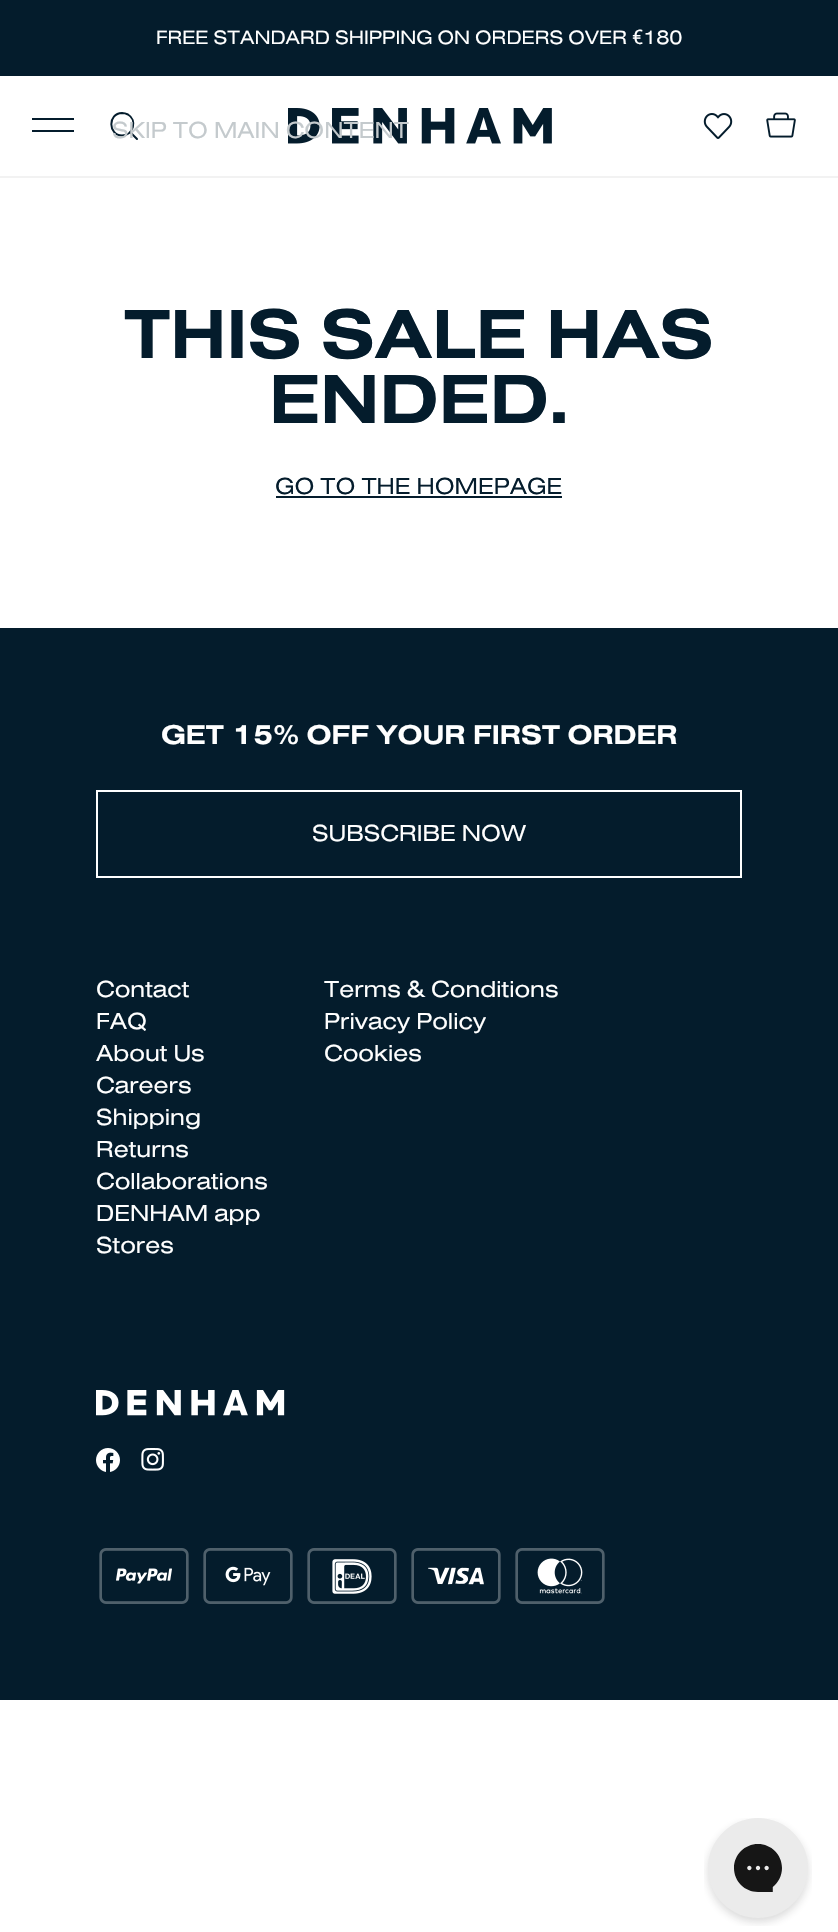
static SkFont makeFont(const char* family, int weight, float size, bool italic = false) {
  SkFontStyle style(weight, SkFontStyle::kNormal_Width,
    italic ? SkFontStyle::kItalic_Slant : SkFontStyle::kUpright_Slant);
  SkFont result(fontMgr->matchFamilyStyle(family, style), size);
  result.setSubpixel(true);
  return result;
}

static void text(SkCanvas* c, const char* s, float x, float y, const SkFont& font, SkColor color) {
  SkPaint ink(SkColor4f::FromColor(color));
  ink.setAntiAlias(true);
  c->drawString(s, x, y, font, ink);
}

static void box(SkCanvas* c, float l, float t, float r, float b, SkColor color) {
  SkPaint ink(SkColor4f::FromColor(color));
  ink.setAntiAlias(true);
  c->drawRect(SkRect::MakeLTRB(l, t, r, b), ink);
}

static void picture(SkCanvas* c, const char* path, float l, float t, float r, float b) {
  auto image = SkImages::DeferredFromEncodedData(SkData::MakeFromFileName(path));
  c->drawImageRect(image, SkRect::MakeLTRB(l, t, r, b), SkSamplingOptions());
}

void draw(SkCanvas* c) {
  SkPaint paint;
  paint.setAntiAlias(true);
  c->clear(0xffffffff);
  box(c, 0, 0, 838, 76, 0xff041c2c);
  SkFont face1 = makeFont("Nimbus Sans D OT", 400, 20);
  text(c, "FREE STANDARD SHIPPING ON ORDERS OVER", 156, 44, face1, 0xffffffff);
  SkFont face2 = makeFont("Roboto", 400, 20);
  text(c, "€", 632, 44, face2, 0xffffffff);
  text(c, "180", 643, 44, face1, 0xffffffff);
  box(c, 32, 118, 74, 120, 0xff041c2c);
  box(c, 32, 130, 74, 132, 0xff041c2c);
  paint.setStyle(SkPaint::kStroke_Style);
  paint.setStrokeWidth(2);
  paint.setStrokeCap(SkPaint::kRound_Cap);
  paint.setStrokeJoin(SkPaint::kRound_Join);
  paint.setColor(0xff041c2c);
  c->drawPath(SkPathBuilder().moveTo(122, 135.5f).cubicTo(133.5f, 135.5f, 137.5f, 120, 128, 114.5f).cubicTo(126, 113.5f, 124, 113, 122, 113).cubicTo(107.5f, 113.5f, 108, 135, 122, 135.5f).close().moveTo(130.5f, 132.5f).lineTo(137, 139).detach(), paint);
  picture(c, "img_01.png", 288, 108, 552, 144);
  picture(c, "img_02.png", 703, 113, 733, 139);
  picture(c, "img_03.png", 766, 112, 796, 138);
  box(c, 0, 176, 838, 178, 0xfff2f2f2);
  SkFont face3 = makeFont("Nimbus Sans D OT", 400, 24);
  text(c, "SKIP TO MAIN CONTENT", 112, 138, face3, 0xffc4cacd);
  SkFont face4 = makeFont("Nimbus Sans D OT", 700, 72);
  text(c, "THIS SALE HAS", 124, 358, face4, 0xff041c2c);
  text(c, "ENDED.", 269, 423, face4, 0xff041c2c);
  text(c, "GO TO THE HOMEPAGE", 275, 494, face3, 0xff041c2c);
  box(c, 276, 496, 562, 498, 0xff041c2c);
  box(c, 0, 628, 838, 1700, 0xff041c2c);
  SkFont face5 = makeFont("Nimbus Sans D OT", 700, 28);
  text(c, "GET 15% OFF YOUR FIRST ORDER", 161, 744, face5, 0xffffffff);
  paint.setStrokeCap(SkPaint::kButt_Cap);
  paint.setStrokeJoin(SkPaint::kMiter_Join);
  paint.setColor(0xffffffff);
  c->drawRect(SkRect::MakeLTRB(97, 791, 741, 877), paint);
  text(c, "SUBSCRIBE NOW", 312, 841, face3, 0xffffffff);
  text(c, "Contact", 96, 997, face3, 0xffffffff);
  text(c, "FAQ", 96, 1029, face3, 0xffffffff);
  text(c, "About Us", 96, 1061, face3, 0xffffffff);
  text(c, "Careers", 96, 1093, face3, 0xffffffff);
  text(c, "Shipping", 96, 1125, face3, 0xffffffff);
  text(c, "Returns", 96, 1157, face3, 0xffffffff);
  text(c, "Collaborations", 96, 1189, face3, 0xffffffff);
  text(c, "DENHAM app", 96, 1221, face3, 0xffffffff);
  text(c, "Stores", 96, 1253, face3, 0xffffffff);
  text(c, "Terms & Conditions", 324, 997, face3, 0xffffffff);
  text(c, "Privacy Policy", 324, 1029, face3, 0xffffffff);
  text(c, "Cookies", 324, 1061, face3, 0xffffffff);
  picture(c, "img_04.png", 96, 1390, 285, 1416);
  picture(c, "img_05.png", 96, 1448, 120, 1472);
  picture(c, "img_06.png", 141, 1448, 164, 1471);
  picture(c, "img_07.png", 99, 1548, 189, 1604);
  picture(c, "img_08.png", 203, 1548, 293, 1604);
  picture(c, "img_09.png", 307, 1548, 397, 1604);
  picture(c, "img_10.png", 411, 1548, 501, 1604);
  picture(c, "img_11.png", 515, 1548, 605, 1604);
  picture(c, "img_12.png", 704, 1818, 812, 1926);
}
